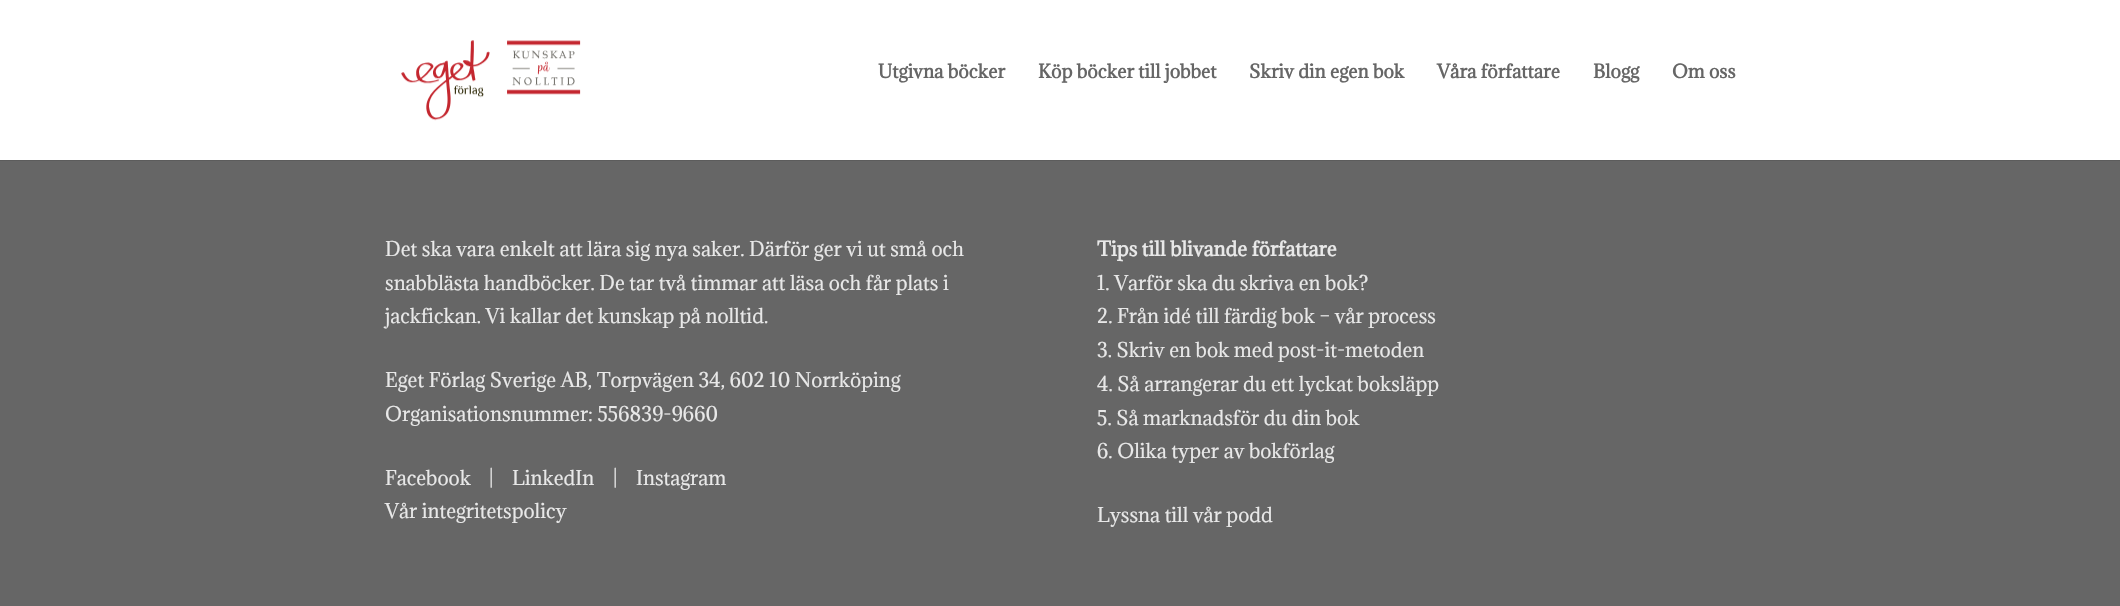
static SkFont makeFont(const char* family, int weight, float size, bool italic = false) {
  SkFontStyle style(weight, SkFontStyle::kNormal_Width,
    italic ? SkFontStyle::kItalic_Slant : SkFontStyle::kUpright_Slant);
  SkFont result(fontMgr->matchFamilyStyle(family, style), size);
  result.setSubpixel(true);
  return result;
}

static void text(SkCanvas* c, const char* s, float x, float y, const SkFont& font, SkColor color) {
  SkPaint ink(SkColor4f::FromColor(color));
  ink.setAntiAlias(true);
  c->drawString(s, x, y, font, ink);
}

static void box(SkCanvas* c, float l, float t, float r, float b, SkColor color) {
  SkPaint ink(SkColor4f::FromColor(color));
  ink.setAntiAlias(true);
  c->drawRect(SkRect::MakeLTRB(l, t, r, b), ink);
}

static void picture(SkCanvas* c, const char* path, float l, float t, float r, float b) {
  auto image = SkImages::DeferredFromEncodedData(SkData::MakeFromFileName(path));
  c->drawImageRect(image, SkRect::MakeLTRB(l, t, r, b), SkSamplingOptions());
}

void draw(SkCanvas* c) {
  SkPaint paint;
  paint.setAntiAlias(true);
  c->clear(0xff666666);
  box(c, 0, 160, 2120, 161, 0xff5c5c5c);
  box(c, 0, 0, 2120, 160, 0xffffffff);
  picture(c, "img_01.png", 401, 40, 581, 121);
  SkFont face1 = makeFont("Adamina", 700, 17.5f);
  text(c, "Utgivna böcker", 878, 78, face1, 0xff666666);
  text(c, "Köp böcker till jobbet", 1038, 78, face1, 0xff666666);
  text(c, "Skriv din egen bok", 1249, 78, face1, 0xff666666);
  text(c, "Våra författare", 1437, 78, face1, 0xff666666);
  text(c, "Blogg", 1593, 78, face1, 0xff666666);
  text(c, "Om oss", 1672, 78, face1, 0xff666666);
  SkFont face2 = makeFont("Adamina", 400, 18.75f);
  text(c, "Det ska vara enkelt att lära sig nya saker. Därför ger vi ut små och", 385, 256, face2, 0xffe8e8e8);
  text(c, "snabblästa handböcker. De tar två timmar att läsa och får plats i", 385, 290, face2, 0xffe8e8e8);
  text(c, "jackfickan. Vi kallar det kunskap på nolltid.", 385, 323, face2, 0xffe8e8e8);
  text(c, "Eget Förlag Sverige AB, Torpvägen 34, 602 10 Norrköping", 385, 387, face2, 0xffe8e8e8);
  text(c, "Organisationsnummer: 556839-9660", 385, 421, face2, 0xffe8e8e8);
  text(c, "Facebook", 385, 485, face2, 0xffe8e8e8);
  text(c, "|", 489, 485, face2, 0xffe8e8e8);
  text(c, "LinkedIn", 512, 485, face2, 0xffe8e8e8);
  text(c, "|", 613, 485, face2, 0xffe8e8e8);
  text(c, "Instagram", 636, 485, face2, 0xffe8e8e8);
  text(c, "Vår integritetspolicy", 385, 518, face2, 0xffe8e8e8);
  SkFont face3 = makeFont("Adamina", 700, 18.75f);
  text(c, "Tips till blivande författare", 1097, 256, face3, 0xffe8e8e8);
  text(c, "1. Varför ska du skriva en bok?", 1097, 290, face2, 0xffe8e8e8);
  text(c, "2. Från idé till färdig bok – vår process", 1097, 323, face2, 0xffe8e8e8);
  text(c, "3. Skriv en bok med post-it-metoden", 1097, 357, face2, 0xffe8e8e8);
  text(c, "4. Så arrangerar du ett lyckat boksläpp", 1097, 391, face2, 0xffe8e8e8);
  text(c, "5. Så marknadsför du din bok", 1097, 425, face2, 0xffe8e8e8);
  text(c, "6. Olika typer av bokförlag", 1097, 458, face2, 0xffe8e8e8);
  text(c, "Lyssna till vår podd", 1097, 522, face2, 0xffe8e8e8);
}
